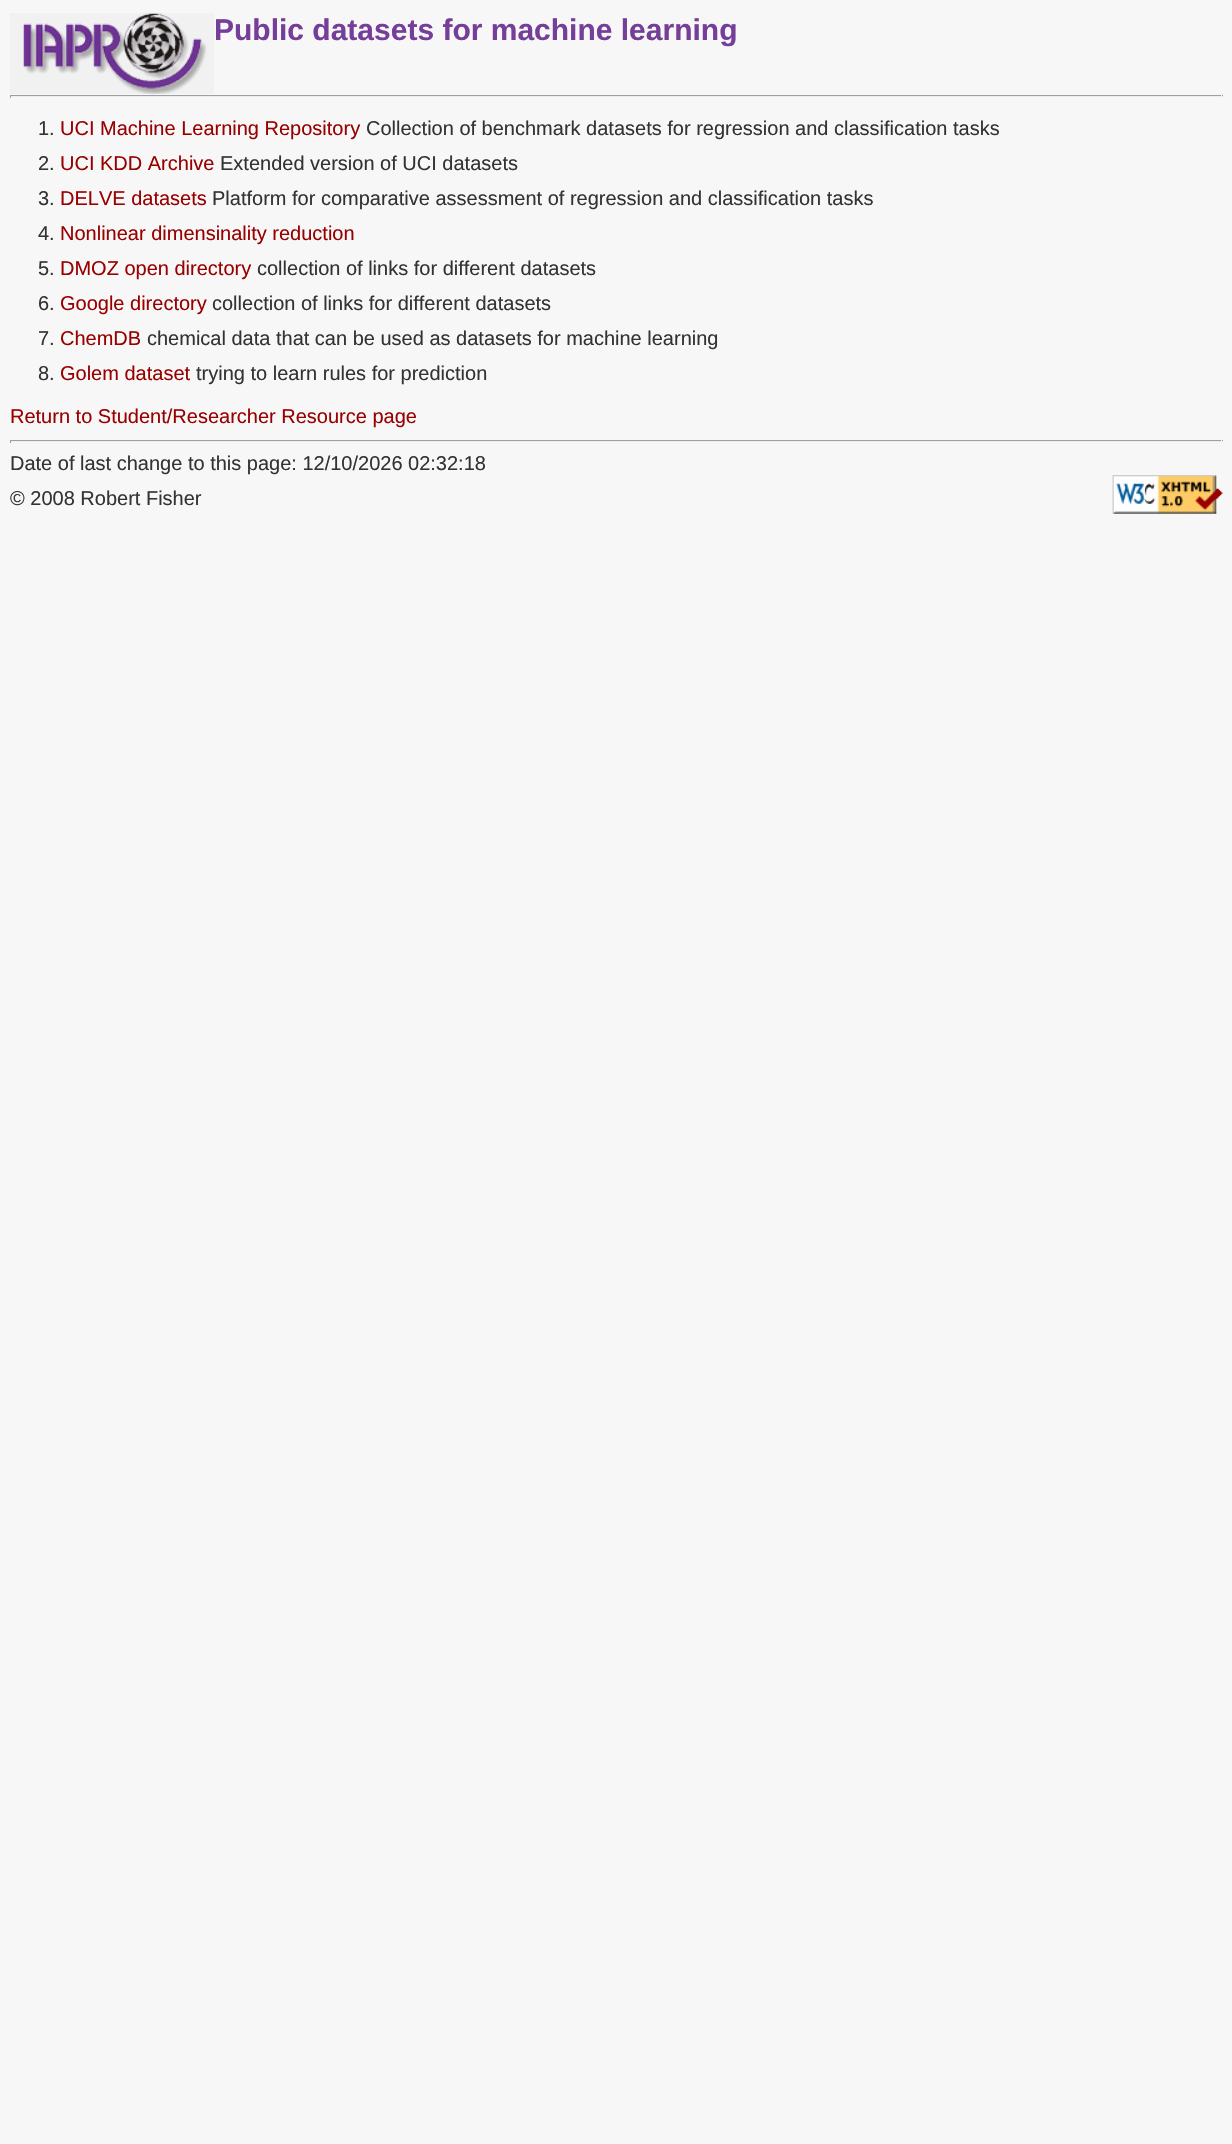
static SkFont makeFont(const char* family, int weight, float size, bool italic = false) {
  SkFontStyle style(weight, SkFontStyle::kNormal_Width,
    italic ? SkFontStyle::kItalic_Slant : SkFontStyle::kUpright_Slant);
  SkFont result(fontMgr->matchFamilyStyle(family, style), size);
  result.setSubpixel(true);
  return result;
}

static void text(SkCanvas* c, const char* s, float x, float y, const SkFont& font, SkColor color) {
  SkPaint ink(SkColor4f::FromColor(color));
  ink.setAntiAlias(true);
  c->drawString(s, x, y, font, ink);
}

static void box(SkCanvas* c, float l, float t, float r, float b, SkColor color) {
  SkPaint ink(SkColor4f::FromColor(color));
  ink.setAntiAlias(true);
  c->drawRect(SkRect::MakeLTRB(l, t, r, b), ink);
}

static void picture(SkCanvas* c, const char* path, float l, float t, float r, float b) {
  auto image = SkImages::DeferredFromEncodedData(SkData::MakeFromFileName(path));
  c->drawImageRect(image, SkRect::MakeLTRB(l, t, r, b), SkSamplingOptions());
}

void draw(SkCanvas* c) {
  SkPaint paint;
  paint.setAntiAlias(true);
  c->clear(0xfff7f7f7);
  picture(c, "img_01.png", 10, 13, 214, 94);
  SkFont face1 = makeFont("Liberation Sans", 700, 30);
  text(c, "Public datasets for machine learning", 214, 40, face1, 0xff753e99);
  box(c, 10, 95, 1223, 96, 0xff9f9f9f);
  box(c, 1221, 95, 1222, 98, 0xffeeeeee);
  box(c, 10, 96, 1223, 97, 0xffeeeeee);
  box(c, 10, 95, 11, 98, 0xff9f9f9f);
  SkFont face2 = makeFont("Liberation Sans", 400, 20);
  text(c, "1.", 38, 135, face2, 0xff333333);
  text(c, "UCI Machine Learning Repository", 60, 135, face2, 0xff990000);
  text(c, "Collection of benchmark datasets for regression and classification tasks", 366, 135, face2, 0xff333333);
  text(c, "2.", 38, 170, face2, 0xff333333);
  text(c, "UCI KDD Archive", 60, 170, face2, 0xff990000);
  text(c, "Extended version of UCI datasets", 220, 170, face2, 0xff333333);
  text(c, "3.", 38, 205, face2, 0xff333333);
  text(c, "DELVE datasets", 60, 205, face2, 0xff990000);
  text(c, "Platform for comparative assessment of regression and classification tasks", 212, 205, face2, 0xff333333);
  text(c, "4.", 38, 240, face2, 0xff333333);
  text(c, "Nonlinear dimensinality reduction", 60, 240, face2, 0xff990000);
  text(c, "5.", 38, 275, face2, 0xff333333);
  text(c, "DMOZ open directory", 60, 275, face2, 0xff990000);
  text(c, "collection of links for different datasets", 257, 275, face2, 0xff333333);
  text(c, "6.", 38, 310, face2, 0xff333333);
  text(c, "Google directory", 60, 310, face2, 0xff990000);
  text(c, "collection of links for different datasets", 212, 310, face2, 0xff333333);
  text(c, "7.", 38, 345, face2, 0xff333333);
  text(c, "ChemDB", 60, 345, face2, 0xff990000);
  text(c, "chemical data that can be used as datasets for machine learning", 147, 345, face2, 0xff333333);
  text(c, "8.", 38, 380, face2, 0xff333333);
  text(c, "Golem dataset", 60, 380, face2, 0xff990000);
  text(c, "trying to learn rules for prediction", 196, 380, face2, 0xff333333);
  text(c, "Return to Student/Researcher Resource page", 10, 423, face2, 0xff990000);
  box(c, 10, 440, 1223, 441, 0xff9f9f9f);
  box(c, 1221, 440, 1222, 443, 0xffeeeeee);
  box(c, 10, 441, 1223, 442, 0xffeeeeee);
  box(c, 10, 440, 11, 443, 0xff9f9f9f);
  text(c, "Date of last change to this page: 12/10/2026 02:32:18", 10, 470, face2, 0xff333333);
  picture(c, "img_02.png", 1112, 475, 1223, 514);
  text(c, "© 2008 Robert Fisher", 10, 505, face2, 0xff333333);
}
